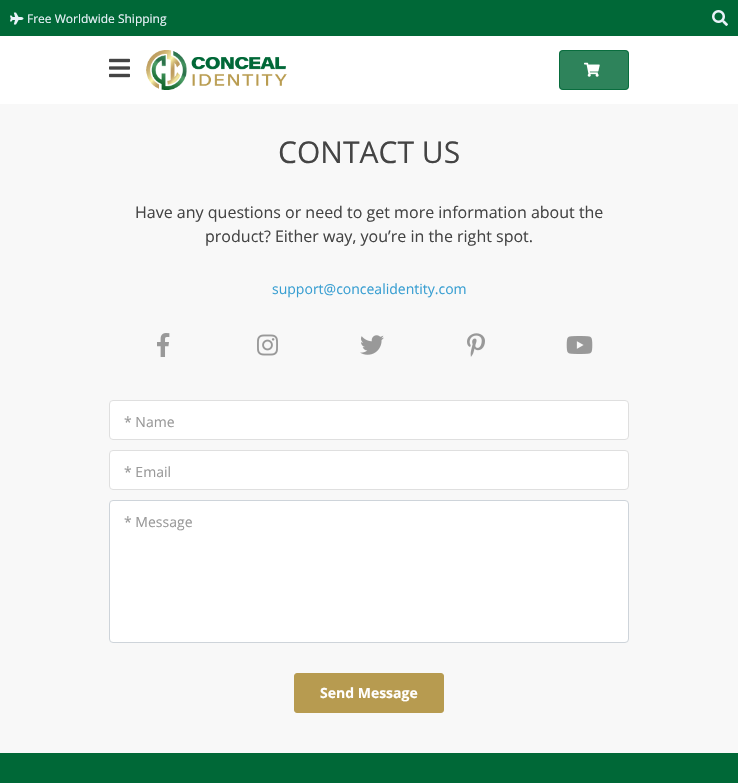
static SkFont makeFont(const char* family, int weight, float size, bool italic = false) {
  SkFontStyle style(weight, SkFontStyle::kNormal_Width,
    italic ? SkFontStyle::kItalic_Slant : SkFontStyle::kUpright_Slant);
  SkFont result(fontMgr->matchFamilyStyle(family, style), size);
  result.setSubpixel(true);
  return result;
}

static void text(SkCanvas* c, const char* s, float x, float y, const SkFont& font, SkColor color) {
  SkPaint ink(SkColor4f::FromColor(color));
  ink.setAntiAlias(true);
  c->drawString(s, x, y, font, ink);
}

static void box(SkCanvas* c, float l, float t, float r, float b, SkColor color) {
  SkPaint ink(SkColor4f::FromColor(color));
  ink.setAntiAlias(true);
  c->drawRect(SkRect::MakeLTRB(l, t, r, b), ink);
}

static void roundBox(SkCanvas* c, float l, float t, float r, float b, float radius, SkColor color) {
  SkPaint ink(SkColor4f::FromColor(color));
  ink.setAntiAlias(true);
  c->drawRoundRect(SkRect::MakeLTRB(l, t, r, b), radius, radius, ink);
}

static void picture(SkCanvas* c, const char* path, float l, float t, float r, float b) {
  auto image = SkImages::DeferredFromEncodedData(SkData::MakeFromFileName(path));
  c->drawImageRect(image, SkRect::MakeLTRB(l, t, r, b), SkSamplingOptions());
}

void draw(SkCanvas* c) {
  SkPaint paint;
  paint.setAntiAlias(true);
  c->clear(0xfff8f8f8);
  box(c, 0, 0, 738, 36, 0xff006837);
  picture(c, "img_01.png", 10, 12, 24, 25);
  SkFont face1 = makeFont("Open Sans", 400, 12);
  text(c, "Free Worldwide Shipping", 27, 23, face1, 0xffe9f2f9);
  picture(c, "img_02.png", 712, 10, 728, 26);
  box(c, 0, 36, 738, 104, 0xffffffff);
  picture(c, "img_03.png", 109, 58, 130, 78);
  picture(c, "img_04.png", 146, 50, 287, 90);
  roundBox(c, 559, 50, 629, 90, 4, 0xff2e835b);
  paint.setStyle(SkPaint::kStroke_Style);
  paint.setStrokeWidth(1);
  paint.setColor(0xd1006837);
  c->drawRoundRect(SkRect::MakeLTRB(559.5f, 50.5f, 628.5f, 89.5f), 3.5f, 3.5f, paint);
  picture(c, "img_05.png", 584, 62, 600, 77);
  SkFont face2 = makeFont("Open Sans", 400, 30);
  text(c, "CONTACT US", 278, 163, face2, 0xff444444);
  SkFont face3 = makeFont("Open Sans", 400, 16);
  text(c, "Have any questions or need to get more information about the", 135, 218, face3, 0xff444444);
  text(c, "product? Either way, you’re in the right spot.", 205, 242, face3, 0xff444444);
  SkFont face4 = makeFont("Open Sans", 400, 14);
  text(c, "support@concealidentity.com", 272, 294, face4, 0xff399fd2);
  picture(c, "img_06.png", 157, 333, 170, 357);
  picture(c, "img_07.png", 257, 334, 278, 356);
  picture(c, "img_08.png", 360, 335, 384, 355);
  picture(c, "img_09.png", 467, 333, 485, 357);
  picture(c, "img_10.png", 566, 336, 593, 354);
  paint.setStyle(SkPaint::kFill_Style);
  paint.setColor(0xffffffff);
  c->drawRoundRect(SkRect::MakeLTRB(109.5f, 400.5f, 628.5f, 439.5f), 3.5f, 3.5f, paint);
  paint.setStyle(SkPaint::kStroke_Style);
  paint.setColor(0xffdfdfdf);
  c->drawRoundRect(SkRect::MakeLTRB(109.5f, 400.5f, 628.5f, 439.5f), 3.5f, 3.5f, paint);
  text(c, "* Name", 124, 427, face4, 0xff999999);
  paint.setStyle(SkPaint::kFill_Style);
  paint.setColor(0xffffffff);
  c->drawRoundRect(SkRect::MakeLTRB(109.5f, 450.5f, 628.5f, 489.5f), 3.5f, 3.5f, paint);
  paint.setStyle(SkPaint::kStroke_Style);
  paint.setColor(0xffdfdfdf);
  c->drawRoundRect(SkRect::MakeLTRB(109.5f, 450.5f, 628.5f, 489.5f), 3.5f, 3.5f, paint);
  text(c, "* Email", 124, 477, face4, 0xff999999);
  paint.setStyle(SkPaint::kFill_Style);
  paint.setColor(0xffffffff);
  c->drawRoundRect(SkRect::MakeLTRB(109.5f, 500.5f, 628.5f, 642.5f), 3.5f, 3.5f, paint);
  paint.setStyle(SkPaint::kStroke_Style);
  paint.setColor(0xffced4da);
  c->drawRoundRect(SkRect::MakeLTRB(109.5f, 500.5f, 628.5f, 642.5f), 3.5f, 3.5f, paint);
  text(c, "* Message", 124, 527, face4, 0xff999999);
  paint.setStyle(SkPaint::kFill_Style);
  paint.setColor(0xffb79b50);
  c->drawRoundRect(SkRect::MakeLTRB(294.5f, 673.5f, 443.5f, 712.5f), 2.5f, 2.5f, paint);
  paint.setStyle(SkPaint::kStroke_Style);
  c->drawRoundRect(SkRect::MakeLTRB(294.5f, 673.5f, 443.5f, 712.5f), 2.5f, 2.5f, paint);
  SkFont face5 = makeFont("Open Sans", 700, 14);
  text(c, "Send Message", 320, 698, face5, 0xffffffff);
  box(c, 0, 753, 738, 783, 0xff006837);
}
